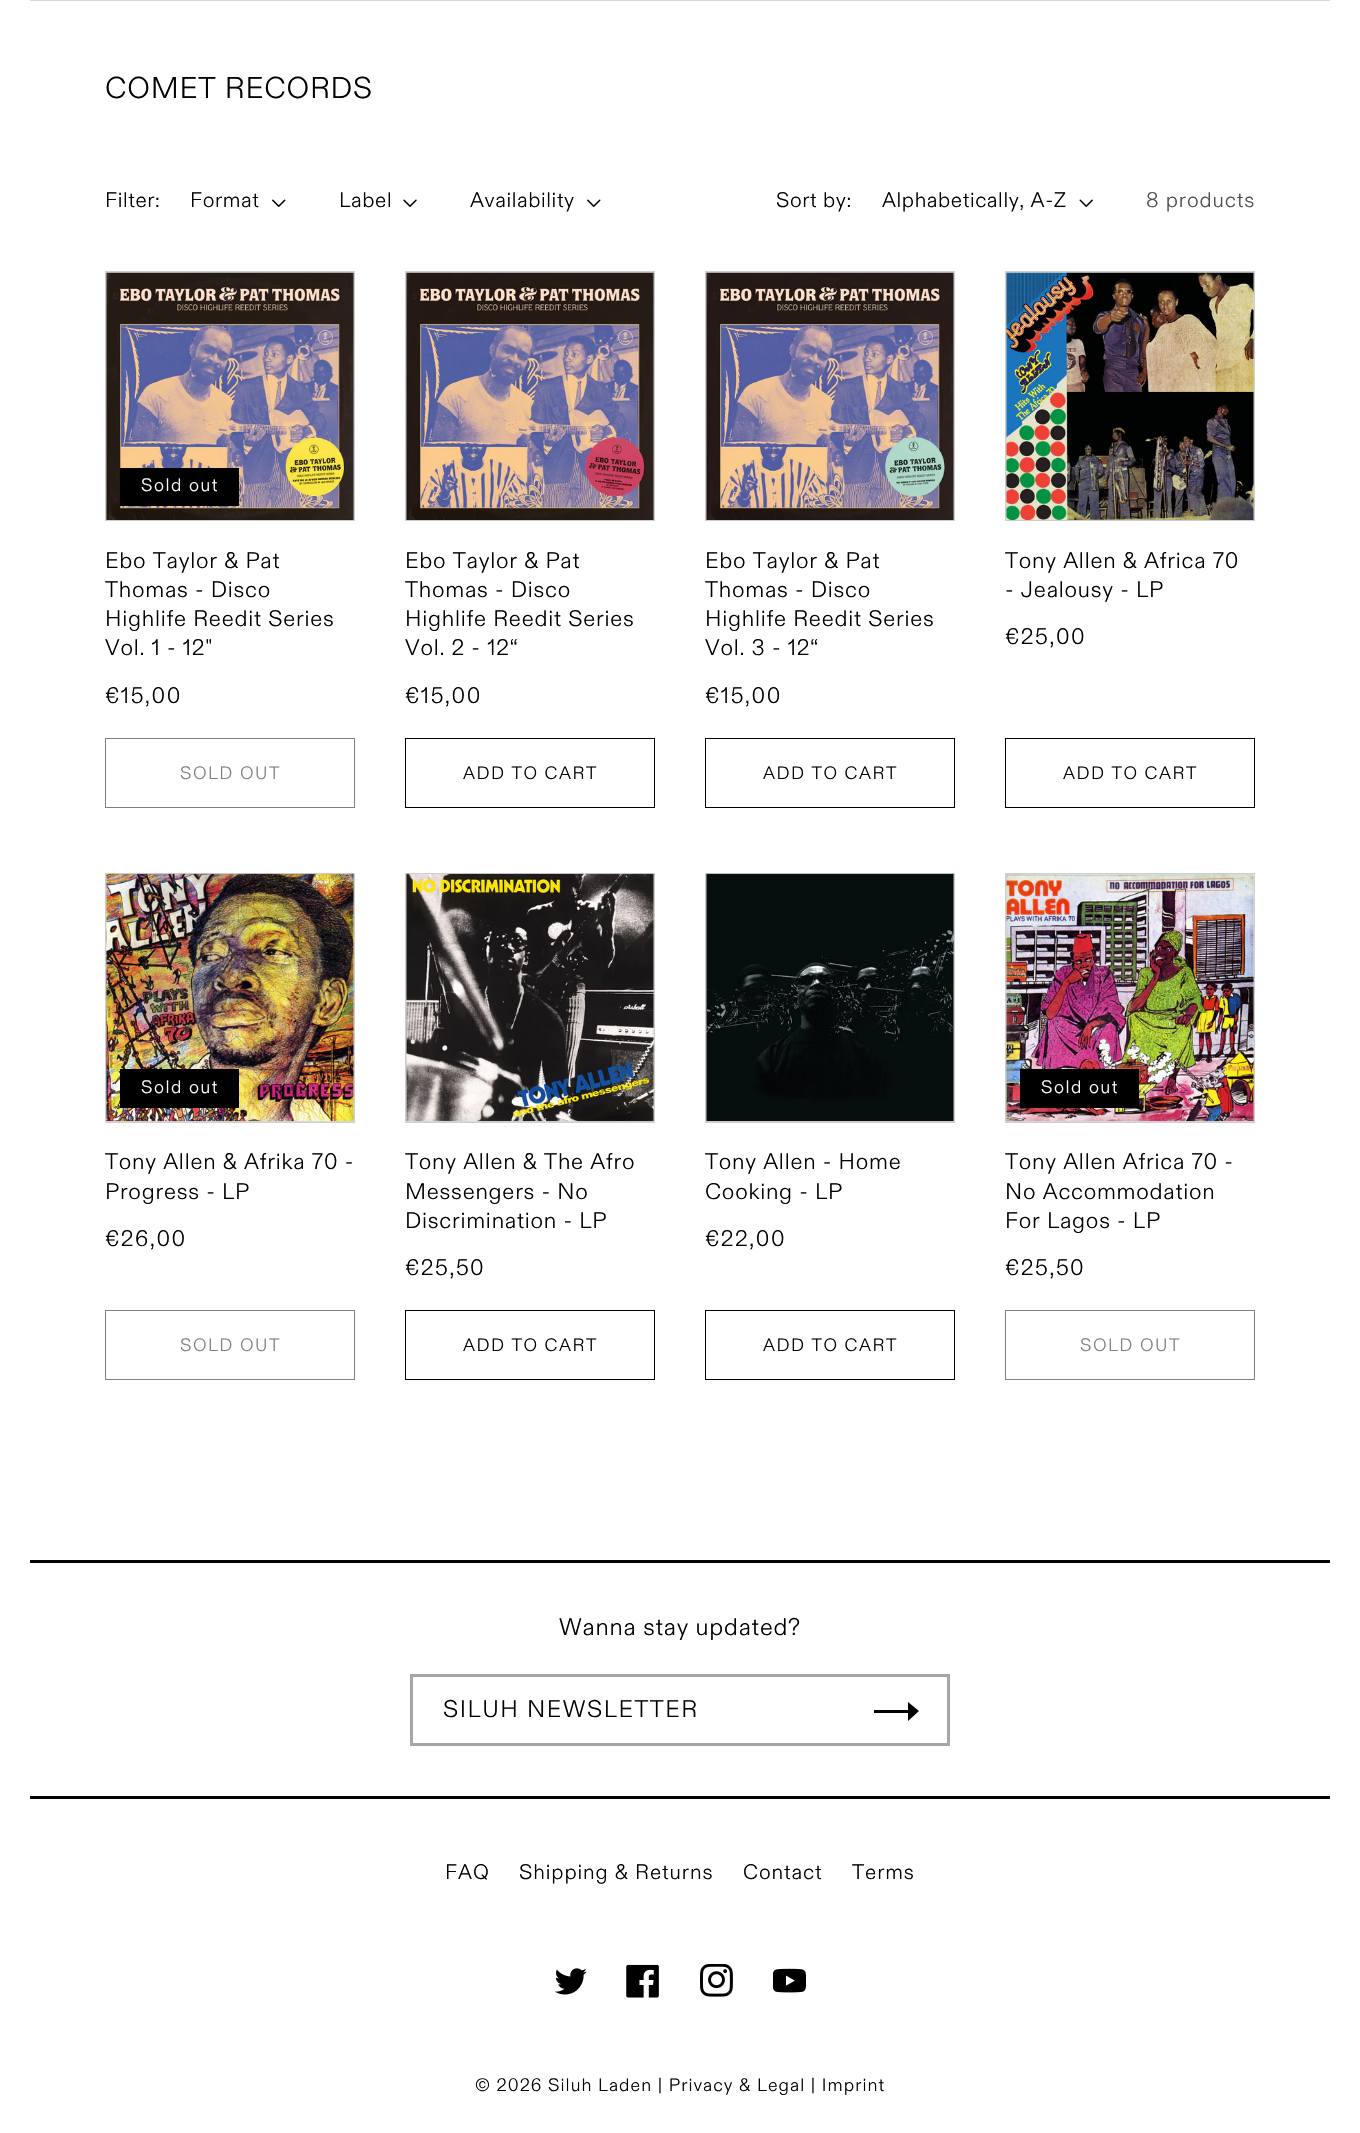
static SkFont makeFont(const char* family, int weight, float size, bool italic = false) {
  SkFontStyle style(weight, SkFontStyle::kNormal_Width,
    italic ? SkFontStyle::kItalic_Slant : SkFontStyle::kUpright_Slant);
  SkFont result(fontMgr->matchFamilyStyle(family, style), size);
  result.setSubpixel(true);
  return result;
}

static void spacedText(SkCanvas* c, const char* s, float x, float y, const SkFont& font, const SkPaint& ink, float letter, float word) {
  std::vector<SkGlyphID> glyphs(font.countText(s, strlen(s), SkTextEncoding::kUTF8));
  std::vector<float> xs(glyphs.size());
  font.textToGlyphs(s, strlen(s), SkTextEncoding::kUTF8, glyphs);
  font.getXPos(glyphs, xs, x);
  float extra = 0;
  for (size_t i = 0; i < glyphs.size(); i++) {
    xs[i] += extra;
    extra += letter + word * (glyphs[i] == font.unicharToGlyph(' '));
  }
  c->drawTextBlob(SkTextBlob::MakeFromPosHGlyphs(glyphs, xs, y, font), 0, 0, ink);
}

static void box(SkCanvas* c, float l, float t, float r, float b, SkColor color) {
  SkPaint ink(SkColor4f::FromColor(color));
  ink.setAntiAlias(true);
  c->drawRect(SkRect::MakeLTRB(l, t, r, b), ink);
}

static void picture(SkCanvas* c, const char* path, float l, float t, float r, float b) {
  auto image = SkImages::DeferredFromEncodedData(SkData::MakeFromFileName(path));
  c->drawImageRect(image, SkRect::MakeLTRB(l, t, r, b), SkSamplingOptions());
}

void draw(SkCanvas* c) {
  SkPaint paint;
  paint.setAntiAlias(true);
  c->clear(0xffffffff);
  box(c, 30, 0, 1330, 1, 0xffd9d9d9);
  SkFont face1 = makeFont("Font", 300, 30);
  paint.setColor(0xff000000);
  spacedText(c, "COMET RECORDS", 105, 98, face1, paint, 0.75f, 0);
  SkFont face2 = makeFont("Font", 300, 21);
  spacedText(c, "Filter:", 105, 207, face2, paint, 0.6f, 0);
  spacedText(c, "Format", 190, 207, face2, paint, 0.6f, 0);
  picture(c, "img_01.png", 272, 199, 286, 207);
  spacedText(c, "Label", 339, 207, face2, paint, 0.6f, 0);
  picture(c, "img_02.png", 403, 199, 417, 207);
  spacedText(c, "Availability", 470, 207, face2, paint, 0.6f, 0);
  picture(c, "img_01.png", 587, 199, 601, 207);
  spacedText(c, "Sort by:", 776, 207, face2, paint, 0.6f, 0);
  spacedText(c, "Alphabetically, A-Z", 882, 207, face2, paint, 0.6f, 0);
  picture(c, "img_03.png", 1079, 199, 1093, 207);
  paint.setColor(0xff4d4d4d);
  spacedText(c, "8 products", 1146, 207, face2, paint, 0.9f, 0);
  paint.setColor(0xffd9d9d9);
  c->drawRect(SkRect::MakeLTRB(105.5f, 271.5f, 354.5f, 520.5f), paint);
  paint.setStyle(SkPaint::kStroke_Style);
  paint.setStrokeWidth(1);
  paint.setColor(0xffcecece);
  c->drawRect(SkRect::MakeLTRB(105.5f, 271.5f, 354.5f, 520.5f), paint);
  picture(c, "img_04.png", 106, 272, 354, 520);
  box(c, 120, 468, 239, 506, 0xff000000);
  SkFont face3 = makeFont("Font", 300, 18);
  paint.setStyle(SkPaint::kFill_Style);
  paint.setColor(0xffffffff);
  spacedText(c, "Sold out", 141, 491, face3, paint, 1.5f, 0);
  SkFont face4 = makeFont("Font", 300, 22.5f);
  paint.setColor(0xff000000);
  spacedText(c, "Ebo Taylor & Pat", 105, 568, face4, paint, 0.75f, 0);
  spacedText(c, "Thomas - Disco", 105, 597, face4, paint, 0.75f, 0);
  spacedText(c, "Highlife Reedit Series", 105, 626, face4, paint, 0.75f, 0);
  spacedText(c, "Vol. 1 - 12\"", 105, 655, face4, paint, 0.75f, 0);
  spacedText(c, "€15,00", 105, 703, face4, paint, 1.5f, 0);
  paint.setStyle(SkPaint::kStroke_Style);
  paint.setColor(0xff808080);
  c->drawRect(SkRect::MakeLTRB(105.5f, 738.5f, 354.5f, 807.5f), paint);
  paint.setStyle(SkPaint::kFill_Style);
  spacedText(c, "SOLD OUT", 180, 779, face3, paint, 1.5f, 0);
  paint.setColor(0xffd9d9d9);
  c->drawRect(SkRect::MakeLTRB(405.5f, 271.5f, 654.5f, 520.5f), paint);
  paint.setStyle(SkPaint::kStroke_Style);
  paint.setColor(0xffcecece);
  c->drawRect(SkRect::MakeLTRB(405.5f, 271.5f, 654.5f, 520.5f), paint);
  picture(c, "img_05.png", 406, 272, 654, 520);
  paint.setStyle(SkPaint::kFill_Style);
  paint.setColor(0xff000000);
  spacedText(c, "Ebo Taylor & Pat", 405, 568, face4, paint, 0.75f, 0);
  spacedText(c, "Thomas - Disco", 405, 597, face4, paint, 0.75f, 0);
  spacedText(c, "Highlife Reedit Series", 405, 626, face4, paint, 0.75f, 0);
  spacedText(c, "Vol. 2 - 12“", 405, 655, face4, paint, 0.75f, 0);
  spacedText(c, "€15,00", 405, 703, face4, paint, 1.5f, 0);
  paint.setStyle(SkPaint::kStroke_Style);
  c->drawRect(SkRect::MakeLTRB(405.5f, 738.5f, 654.5f, 807.5f), paint);
  paint.setStyle(SkPaint::kFill_Style);
  spacedText(c, "ADD TO CART", 463, 779, face3, paint, 1.5f, 0);
  paint.setColor(0xffd9d9d9);
  c->drawRect(SkRect::MakeLTRB(705.5f, 271.5f, 954.5f, 520.5f), paint);
  paint.setStyle(SkPaint::kStroke_Style);
  paint.setColor(0xffcecece);
  c->drawRect(SkRect::MakeLTRB(705.5f, 271.5f, 954.5f, 520.5f), paint);
  picture(c, "img_06.png", 706, 272, 954, 520);
  paint.setStyle(SkPaint::kFill_Style);
  paint.setColor(0xff000000);
  spacedText(c, "Ebo Taylor & Pat", 705, 568, face4, paint, 0.75f, 0);
  spacedText(c, "Thomas - Disco", 705, 597, face4, paint, 0.75f, 0);
  spacedText(c, "Highlife Reedit Series", 705, 626, face4, paint, 0.75f, 0);
  spacedText(c, "Vol. 3 - 12“", 705, 655, face4, paint, 0.75f, 0);
  spacedText(c, "€15,00", 705, 703, face4, paint, 1.5f, 0);
  paint.setStyle(SkPaint::kStroke_Style);
  c->drawRect(SkRect::MakeLTRB(705.5f, 738.5f, 954.5f, 807.5f), paint);
  paint.setStyle(SkPaint::kFill_Style);
  spacedText(c, "ADD TO CART", 763, 779, face3, paint, 1.5f, 0);
  paint.setColor(0xffd9d9d9);
  c->drawRect(SkRect::MakeLTRB(1005.5f, 271.5f, 1254.5f, 520.5f), paint);
  paint.setStyle(SkPaint::kStroke_Style);
  paint.setColor(0xffcecece);
  c->drawRect(SkRect::MakeLTRB(1005.5f, 271.5f, 1254.5f, 520.5f), paint);
  picture(c, "img_07.png", 1006, 272, 1254, 520);
  paint.setStyle(SkPaint::kFill_Style);
  paint.setColor(0xff000000);
  spacedText(c, "Tony Allen & Africa 70", 1005, 568, face4, paint, 0.75f, 0);
  spacedText(c, "- Jealousy - LP", 1005, 597, face4, paint, 0.75f, 0);
  spacedText(c, "€25,00", 1005, 644, face4, paint, 1.5f, 0);
  paint.setStyle(SkPaint::kStroke_Style);
  c->drawRect(SkRect::MakeLTRB(1005.5f, 738.5f, 1254.5f, 807.5f), paint);
  paint.setStyle(SkPaint::kFill_Style);
  spacedText(c, "ADD TO CART", 1063, 779, face3, paint, 1.5f, 0);
  paint.setColor(0xffd9d9d9);
  c->drawRect(SkRect::MakeLTRB(105.5f, 873.5f, 354.5f, 1122.5f), paint);
  paint.setStyle(SkPaint::kStroke_Style);
  paint.setColor(0xffcecece);
  c->drawRect(SkRect::MakeLTRB(105.5f, 873.5f, 354.5f, 1122.5f), paint);
  picture(c, "img_08.png", 106, 873, 354, 1122);
  box(c, 120, 1069, 239, 1108, 0xff000000);
  paint.setStyle(SkPaint::kFill_Style);
  paint.setColor(0xffffffff);
  spacedText(c, "Sold out", 141, 1093, face3, paint, 1.5f, 0);
  paint.setColor(0xff000000);
  spacedText(c, "Tony Allen & Afrika 70 -", 105, 1169, face4, paint, 0.75f, 0);
  spacedText(c, "Progress - LP", 105, 1199, face4, paint, 0.75f, 0);
  spacedText(c, "€26,00", 105, 1246, face4, paint, 1.5f, 0);
  paint.setStyle(SkPaint::kStroke_Style);
  paint.setColor(0xff808080);
  c->drawRect(SkRect::MakeLTRB(105.5f, 1310.5f, 354.5f, 1379.5f), paint);
  paint.setStyle(SkPaint::kFill_Style);
  spacedText(c, "SOLD OUT", 180, 1351, face3, paint, 1.5f, 0);
  paint.setColor(0xffd9d9d9);
  c->drawRect(SkRect::MakeLTRB(405.5f, 873.5f, 654.5f, 1122.5f), paint);
  paint.setStyle(SkPaint::kStroke_Style);
  paint.setColor(0xffcecece);
  c->drawRect(SkRect::MakeLTRB(405.5f, 873.5f, 654.5f, 1122.5f), paint);
  picture(c, "img_09.png", 406, 873, 654, 1122);
  paint.setStyle(SkPaint::kFill_Style);
  paint.setColor(0xff000000);
  spacedText(c, "Tony Allen & The Afro", 405, 1169, face4, paint, 0.75f, 0);
  spacedText(c, "Messengers - No", 405, 1199, face4, paint, 0.75f, 0);
  spacedText(c, "Discrimination - LP", 405, 1228, face4, paint, 0.75f, 0);
  spacedText(c, "€25,50", 405, 1275, face4, paint, 1.5f, 0);
  paint.setStyle(SkPaint::kStroke_Style);
  c->drawRect(SkRect::MakeLTRB(405.5f, 1310.5f, 654.5f, 1379.5f), paint);
  paint.setStyle(SkPaint::kFill_Style);
  spacedText(c, "ADD TO CART", 463, 1351, face3, paint, 1.5f, 0);
  paint.setColor(0xffd9d9d9);
  c->drawRect(SkRect::MakeLTRB(705.5f, 873.5f, 954.5f, 1122.5f), paint);
  paint.setStyle(SkPaint::kStroke_Style);
  paint.setColor(0xffcecece);
  c->drawRect(SkRect::MakeLTRB(705.5f, 873.5f, 954.5f, 1122.5f), paint);
  picture(c, "img_10.png", 706, 873, 954, 1122);
  paint.setStyle(SkPaint::kFill_Style);
  paint.setColor(0xff000000);
  spacedText(c, "Tony Allen - Home", 705, 1169, face4, paint, 0.75f, 0);
  spacedText(c, "Cooking - LP", 705, 1199, face4, paint, 0.75f, 0);
  spacedText(c, "€22,00", 705, 1246, face4, paint, 1.5f, 0);
  paint.setStyle(SkPaint::kStroke_Style);
  c->drawRect(SkRect::MakeLTRB(705.5f, 1310.5f, 954.5f, 1379.5f), paint);
  paint.setStyle(SkPaint::kFill_Style);
  spacedText(c, "ADD TO CART", 763, 1351, face3, paint, 1.5f, 0);
  paint.setColor(0xffd9d9d9);
  c->drawRect(SkRect::MakeLTRB(1005.5f, 873.5f, 1254.5f, 1122.5f), paint);
  paint.setStyle(SkPaint::kStroke_Style);
  paint.setColor(0xffcecece);
  c->drawRect(SkRect::MakeLTRB(1005.5f, 873.5f, 1254.5f, 1122.5f), paint);
  picture(c, "img_11.png", 1006, 874, 1254, 1122);
  box(c, 1020, 1069, 1139, 1108, 0xff000000);
  paint.setStyle(SkPaint::kFill_Style);
  paint.setColor(0xffffffff);
  spacedText(c, "Sold out", 1041, 1093, face3, paint, 1.5f, 0);
  paint.setColor(0xff000000);
  spacedText(c, "Tony Allen Africa 70 -", 1005, 1169, face4, paint, 0.75f, 0);
  spacedText(c, "No Accommodation", 1005, 1199, face4, paint, 0.75f, 0);
  spacedText(c, "For Lagos - LP", 1005, 1228, face4, paint, 0.75f, 0);
  spacedText(c, "€25,50", 1005, 1275, face4, paint, 1.5f, 0);
  paint.setStyle(SkPaint::kStroke_Style);
  paint.setColor(0xff808080);
  c->drawRect(SkRect::MakeLTRB(1005.5f, 1310.5f, 1254.5f, 1379.5f), paint);
  paint.setStyle(SkPaint::kFill_Style);
  spacedText(c, "SOLD OUT", 1080, 1351, face3, paint, 1.5f, 0);
  box(c, 30, 1560, 1330, 1563, 0xff000000);
  box(c, 30, 1796, 1330, 1799, 0xff000000);
  SkFont face5 = makeFont("Font", 300, 24);
  paint.setColor(0xff000000);
  spacedText(c, "Wanna stay updated?", 559, 1635, face5, paint, 0.75f, 0);
  paint.setStyle(SkPaint::kStroke_Style);
  paint.setStrokeWidth(3);
  paint.setColor(0xffa6a6a6);
  c->drawRect(SkRect::MakeLTRB(411.5f, 1675.5f, 948.5f, 1744.5f), paint);
  paint.setStyle(SkPaint::kFill_Style);
  paint.setColor(0xff000000);
  spacedText(c, "SILUH NEWSLETTER", 443, 1717, face5, paint, 1.5f, 0);
  c->drawPath(SkPathBuilder(SkPathFillType::kEvenOdd).moveTo(908, 1721).lineTo(908, 1713).lineTo(874, 1713).lineTo(874, 1710).lineTo(908, 1710).lineTo(908, 1702).lineTo(919, 1711).close().detach(), paint);
  spacedText(c, "FAQ", 445, 1879, face2, paint, 0.9f, 0);
  spacedText(c, "Shipping & Returns", 519, 1879, face2, paint, 0.9f, 0);
  spacedText(c, "Contact", 743, 1879, face2, paint, 0.9f, 0);
  spacedText(c, "Terms", 852, 1879, face2, paint, 0.9f, 0);
  picture(c, "img_12.png", 554, 1968, 587, 1995);
  picture(c, "img_13.png", 626, 1964, 659, 1998);
  picture(c, "img_14.png", 700, 1964, 733, 1997);
  picture(c, "img_15.png", 773, 1968, 806, 1993);
  spacedText(c, "© 2026 Siluh Laden | Privacy & Legal | Imprint", 475, 2091, face3, paint, 1.05f, 0);
}
